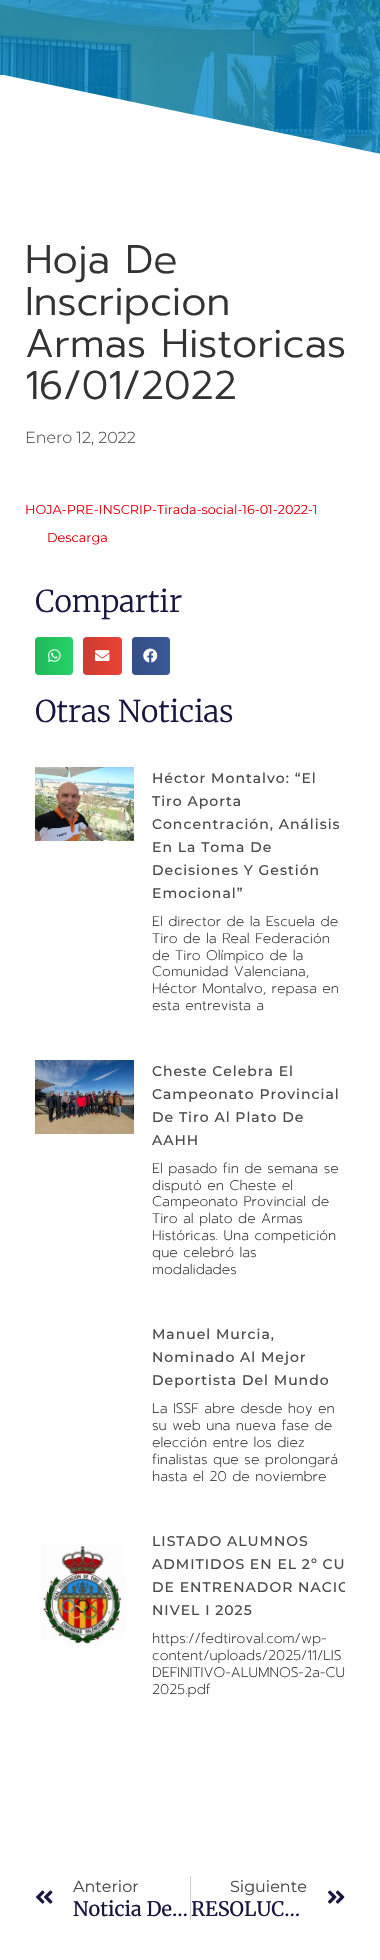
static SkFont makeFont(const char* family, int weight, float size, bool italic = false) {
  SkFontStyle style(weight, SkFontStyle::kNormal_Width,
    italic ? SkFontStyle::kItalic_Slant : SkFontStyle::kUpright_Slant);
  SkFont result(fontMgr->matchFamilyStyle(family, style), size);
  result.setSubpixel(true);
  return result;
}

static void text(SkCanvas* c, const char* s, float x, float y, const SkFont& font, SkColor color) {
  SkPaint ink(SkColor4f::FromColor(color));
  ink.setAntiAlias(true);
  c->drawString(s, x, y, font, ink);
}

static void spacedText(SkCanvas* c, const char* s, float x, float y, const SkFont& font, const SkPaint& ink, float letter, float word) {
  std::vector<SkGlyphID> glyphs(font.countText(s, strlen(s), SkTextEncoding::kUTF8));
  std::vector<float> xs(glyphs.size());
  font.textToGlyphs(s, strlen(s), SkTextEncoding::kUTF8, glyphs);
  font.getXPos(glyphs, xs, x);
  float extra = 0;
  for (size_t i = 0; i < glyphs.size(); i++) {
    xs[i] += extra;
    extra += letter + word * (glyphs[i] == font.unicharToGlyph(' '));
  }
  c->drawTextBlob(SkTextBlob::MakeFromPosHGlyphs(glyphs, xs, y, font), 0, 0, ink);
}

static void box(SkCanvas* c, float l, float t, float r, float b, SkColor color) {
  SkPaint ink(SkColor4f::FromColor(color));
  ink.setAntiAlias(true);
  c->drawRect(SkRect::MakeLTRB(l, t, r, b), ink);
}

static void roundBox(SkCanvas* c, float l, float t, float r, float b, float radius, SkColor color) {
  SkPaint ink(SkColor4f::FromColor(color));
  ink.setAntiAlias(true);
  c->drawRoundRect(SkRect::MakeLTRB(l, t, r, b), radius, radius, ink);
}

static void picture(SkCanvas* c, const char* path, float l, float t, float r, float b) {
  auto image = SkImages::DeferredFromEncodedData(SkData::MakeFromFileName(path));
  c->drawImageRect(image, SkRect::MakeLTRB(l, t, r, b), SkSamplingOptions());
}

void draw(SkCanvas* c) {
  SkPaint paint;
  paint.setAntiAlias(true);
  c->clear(0xffffffff);
  picture(c, "img_01.png", 0, 0, 380, 154);
  c->save();
  c->clipRect(SkRect::MakeLTRB(0, 75, 380, 160));
  paint.setColor(0xffffffff);
  c->drawPath(SkPathBuilder().moveTo(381, 154).lineTo(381, 159).lineTo(-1, 159).lineTo(-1, 74).close().detach(), paint);
  c->restore();
  SkFont face1 = makeFont("Prompt", 300, 40);
  text(c, "Hoja De", 25, 273, face1, 0xff333333);
  text(c, "Inscripcion", 25, 315, face1, 0xff333333);
  text(c, "Armas Historicas", 25, 357, face1, 0xff333333);
  text(c, "16/01/2022", 25, 399, face1, 0xff333333);
  SkFont face2 = makeFont("Montserrat", 300, 16);
  text(c, "Enero 12, 2022", 25, 443, face2, 0xff4a4a4a);
  SkFont face3 = makeFont("Montserrat", 400, 12.8f);
  text(c, "HOJA-PRE-INSCRIP-Tirada-social-16-01-2022-1", 25, 514, face3, 0xffe30613);
  text(c, "Descarga", 47, 542, face3, 0xffe30613);
  SkFont face4 = makeFont("Merriweather", 300, 30);
  text(c, "Compartir", 35, 612, face4, 0xff16163f);
  roundBox(c, 35, 637, 73, 675, 4, 0xff25d366);
  {
    const SkColor colors[] = {0x1f000000, 0x00000000};
    const float stops[] = {0, 1};
    const SkPoint ends[] = {{35, 656}, {73, 656}};
    paint.setShader(SkGradientShader::MakeLinear(ends, colors, stops, 2, SkTileMode::kClamp));
    paint.setAlpha(255);
  }
  c->drawRoundRect(SkRect::MakeLTRB(35, 637, 73, 675), 4, 4, paint);
  picture(c, "img_02.png", 48, 649, 61, 662);
  roundBox(c, 83, 637, 122, 675, 4, 0xffea4335);
  {
    const SkColor colors[] = {0x1f000000, 0x00000000};
    const float stops[] = {0, 1};
    const SkPoint ends[] = {{83, 656}, {122, 656}};
    paint.setShader(SkGradientShader::MakeLinear(ends, colors, stops, 2, SkTileMode::kClamp));
    paint.setAlpha(255);
  }
  c->drawRoundRect(SkRect::MakeLTRB(83, 637, 122, 675), 4, 4, paint);
  picture(c, "img_03.png", 95, 650, 110, 661);
  roundBox(c, 132, 637, 170, 675, 4, 0xff3b5998);
  {
    const SkColor colors[] = {0x1f000000, 0x00000000};
    const float stops[] = {0, 1};
    const SkPoint ends[] = {{132, 656}, {170, 656}};
    paint.setShader(SkGradientShader::MakeLinear(ends, colors, stops, 2, SkTileMode::kClamp));
    paint.setAlpha(255);
  }
  c->drawRoundRect(SkRect::MakeLTRB(132, 637, 170, 675), 4, 4, paint);
  picture(c, "img_04.png", 143, 648, 158, 663);
  text(c, "Otras Noticias", 35, 722, face4, 0xff16163f);
  picture(c, "img_05.png", 35, 767, 134, 841);
  SkFont face5 = makeFont("Montserrat", 500, 14);
  paint.setShader(nullptr);
  paint.setColor(0xff4a4a4a);
  spacedText(c, "Héctor Montalvo: “El", 152, 783, face5, paint, 1, 0);
  spacedText(c, "Tiro Aporta", 152, 806, face5, paint, 1, 0);
  spacedText(c, "Concentración, Análisis", 152, 829, face5, paint, 1, 0);
  spacedText(c, "En La Toma De", 152, 852, face5, paint, 1, 0);
  spacedText(c, "Decisiones Y Gestión", 152, 875, face5, paint, 1, 0);
  spacedText(c, "Emocional”", 152, 898, face5, paint, 1, 0);
  SkFont face6 = makeFont("Prompt", 200, 14);
  text(c, "El director de la Escuela de", 152, 926, face6, 0xff333333);
  text(c, "Tiro de la Real Federación", 152, 943, face6, 0xff333333);
  text(c, "de Tiro Olímpico de la", 152, 960, face6, 0xff333333);
  text(c, "Comunidad Valenciana,", 152, 976, face6, 0xff333333);
  text(c, "Héctor Montalvo, repasa en", 152, 993, face6, 0xff333333);
  text(c, "esta entrevista a", 152, 1010, face6, 0xff333333);
  picture(c, "img_06.png", 35, 1060, 134, 1134);
  spacedText(c, "Cheste Celebra El", 152, 1076, face5, paint, 1, 0);
  spacedText(c, "Campeonato Provincial", 152, 1099, face5, paint, 1, 0);
  spacedText(c, "De Tiro Al Plato De", 152, 1122, face5, paint, 1, 0);
  spacedText(c, "AAHH", 152, 1145, face5, paint, 1, 0);
  text(c, "El pasado fin de semana se", 152, 1173, face6, 0xff333333);
  text(c, "disputó en Cheste el", 152, 1190, face6, 0xff333333);
  text(c, "Campeonato Provincial de", 152, 1206, face6, 0xff333333);
  text(c, "Tiro al plato de Armas", 152, 1223, face6, 0xff333333);
  text(c, "Históricas. Una competición", 152, 1240, face6, 0xff333333);
  text(c, "que celebró las", 152, 1257, face6, 0xff333333);
  text(c, "modalidades", 152, 1274, face6, 0xff333333);
  spacedText(c, "Manuel Murcia,", 152, 1339, face5, paint, 1, 0);
  spacedText(c, "Nominado Al Mejor", 152, 1362, face5, paint, 1, 0);
  spacedText(c, "Deportista Del Mundo", 152, 1385, face5, paint, 1, 0);
  text(c, "La ISSF abre desde hoy en", 152, 1413, face6, 0xff333333);
  text(c, "su web una nueva fase de", 152, 1430, face6, 0xff333333);
  text(c, "elección entre los diez", 152, 1447, face6, 0xff333333);
  text(c, "finalistas que se prolongará", 152, 1464, face6, 0xff333333);
  text(c, "hasta el 20 de noviembre", 152, 1481, face6, 0xff333333);
  picture(c, "img_07.png", 41, 1543, 126, 1646);
  spacedText(c, "LISTADO ALUMNOS", 152, 1546, face5, paint, 1, 0);
  spacedText(c, "ADMITIDOS EN EL 2º CU", 152, 1569, face5, paint, 1, 0);
  c->save();
  c->clipRect(SkRect::MakeLTRB(35, 1530, 345, 1736));
  spacedText(c, "DE ENTRENADOR NACIO", 152, 1592, face5, paint, 1, 0);
  c->restore();
  spacedText(c, "NIVEL I 2025", 152, 1615, face5, paint, 1, 0);
  text(c, "https://fedtiroval.com/wp-", 152, 1643, face6, 0xff333333);
  text(c, "content/uploads/2025/11/LIS", 152, 1660, face6, 0xff333333);
  text(c, "DEFINITIVO-ALUMNOS-2a-CU", 152, 1677, face6, 0xff333333);
  text(c, "2025.pdf", 152, 1694, face6, 0xff333333);
  picture(c, "img_08.png", 36, 1890, 53, 1904);
  SkFont face7 = makeFont("Montserrat", 400, 16);
  text(c, "Anterior", 73, 1892, face7, 0xff4a4a4a);
  SkFont face8 = makeFont("Merriweather", 400, 20);
  text(c, "Noticia De…", 73, 1916, face8, 0xff16163f);
  box(c, 190, 1876, 191, 1920, 0xffd2d1d8);
  text(c, "Siguiente", 230, 1892, face7, 0xff4a4a4a);
  text(c, "RESOLUC…", 191, 1916, face8, 0xff16163f);
  picture(c, "img_09.png", 328, 1890, 345, 1904);
}
